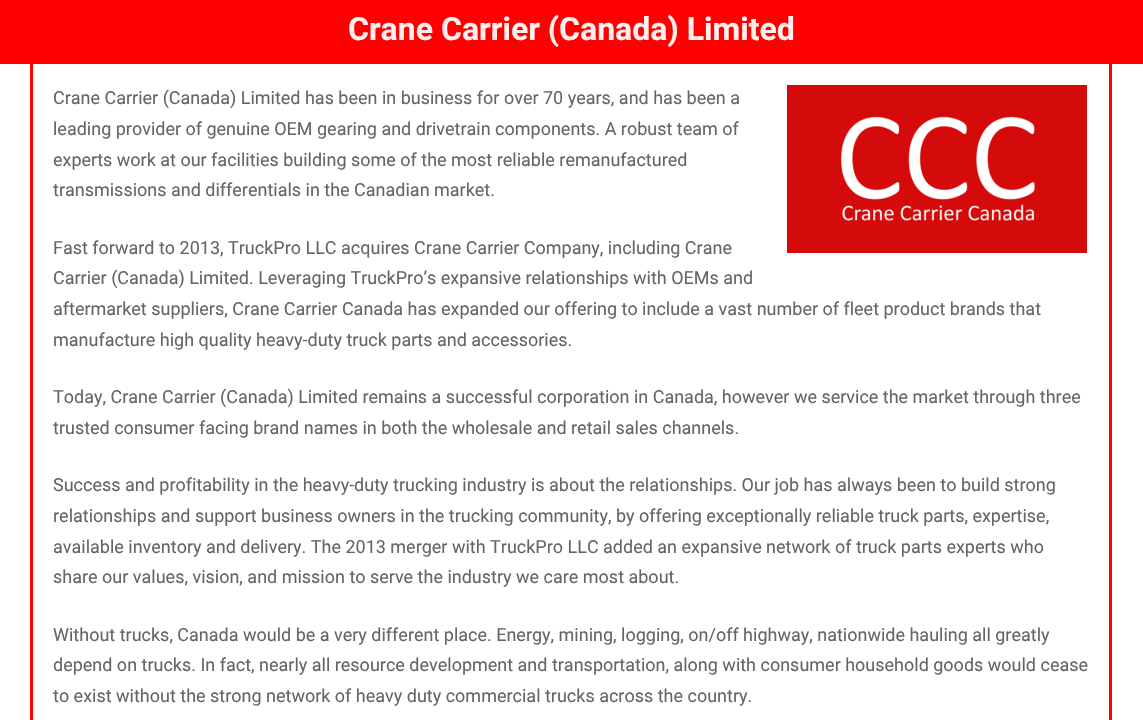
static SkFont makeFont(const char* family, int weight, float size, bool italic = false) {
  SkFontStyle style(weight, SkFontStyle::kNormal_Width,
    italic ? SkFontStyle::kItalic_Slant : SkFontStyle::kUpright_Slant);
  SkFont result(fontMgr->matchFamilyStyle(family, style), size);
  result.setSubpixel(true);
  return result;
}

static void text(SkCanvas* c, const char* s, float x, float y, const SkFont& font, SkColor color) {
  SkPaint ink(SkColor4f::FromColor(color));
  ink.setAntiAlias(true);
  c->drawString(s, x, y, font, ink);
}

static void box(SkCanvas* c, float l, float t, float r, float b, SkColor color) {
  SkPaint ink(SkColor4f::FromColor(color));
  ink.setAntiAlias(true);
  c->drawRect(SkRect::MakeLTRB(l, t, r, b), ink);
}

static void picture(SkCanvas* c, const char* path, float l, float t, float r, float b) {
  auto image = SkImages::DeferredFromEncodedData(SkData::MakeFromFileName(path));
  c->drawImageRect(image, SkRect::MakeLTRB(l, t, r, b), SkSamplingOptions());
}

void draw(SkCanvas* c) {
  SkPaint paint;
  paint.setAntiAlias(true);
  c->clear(0xffffffff);
  box(c, 0, 0, 1143, 64, 0xffff0000);
  SkFont face1 = makeFont("Roboto", 700, 32);
  text(c, "Crane Carrier (Canada) Limited", 348, 40, face1, 0xffffeeee);
  box(c, 1109, 64, 1112, 720, 0xffff0000);
  box(c, 30, 64, 33, 720, 0xffff0000);
  SkFont face2 = makeFont("Roboto", 400, 18);
  text(c, "Crane Carrier (Canada) Limited has been in business for over 70 years, and has been a", 53, 104, face2, 0xff656565);
  picture(c, "img_01.png", 787, 85, 1087, 253);
  text(c, "leading provider of genuine OEM gearing and drivetrain components. A robust team of", 53, 135, face2, 0xff656565);
  text(c, "experts work at our facilities building some of the most reliable remanufactured", 53, 166, face2, 0xff656565);
  text(c, "transmissions and differentials in the Canadian market.", 53, 196, face2, 0xff656565);
  text(c, "Fast forward to 2013, TruckPro LLC acquires Crane Carrier Company, including Crane", 53, 254, face2, 0xff656565);
  text(c, "Carrier (Canada) Limited. Leveraging TruckPro’s expansive relationships with OEMs and", 53, 284, face2, 0xff656565);
  text(c, "aftermarket suppliers, Crane Carrier Canada has expanded our offering to include a vast number of fleet product brands that", 53, 315, face2, 0xff656565);
  text(c, "manufacture high quality heavy-duty truck parts and accessories.", 53, 346, face2, 0xff656565);
  text(c, "Today, Crane Carrier (Canada) Limited remains a successful corporation in Canada, however we service the market through three", 53, 403, face2, 0xff656565);
  text(c, "trusted consumer facing brand names in both the wholesale and retail sales channels.", 53, 434, face2, 0xff656565);
  text(c, "Success and profitability in the heavy-duty trucking industry is about the relationships. Our job has always been to build strong", 53, 491, face2, 0xff656565);
  text(c, "relationships and support business owners in the trucking community, by offering exceptionally reliable truck parts, expertise,", 53, 522, face2, 0xff656565);
  text(c, "available inventory and delivery. The 2013 merger with TruckPro LLC added an expansive network of truck parts experts who", 53, 553, face2, 0xff656565);
  text(c, "share our values, vision, and mission to serve the industry we care most about.", 53, 583, face2, 0xff656565);
  text(c, "Without trucks, Canada would be a very different place. Energy, mining, logging, on/off highway, nationwide hauling all greatly", 53, 641, face2, 0xff656565);
  text(c, "depend on trucks. In fact, nearly all resource development and transportation, along with consumer household goods would cease", 53, 671, face2, 0xff656565);
  text(c, "to exist without the strong network of heavy duty commercial trucks across the country.", 53, 702, face2, 0xff656565);
}
